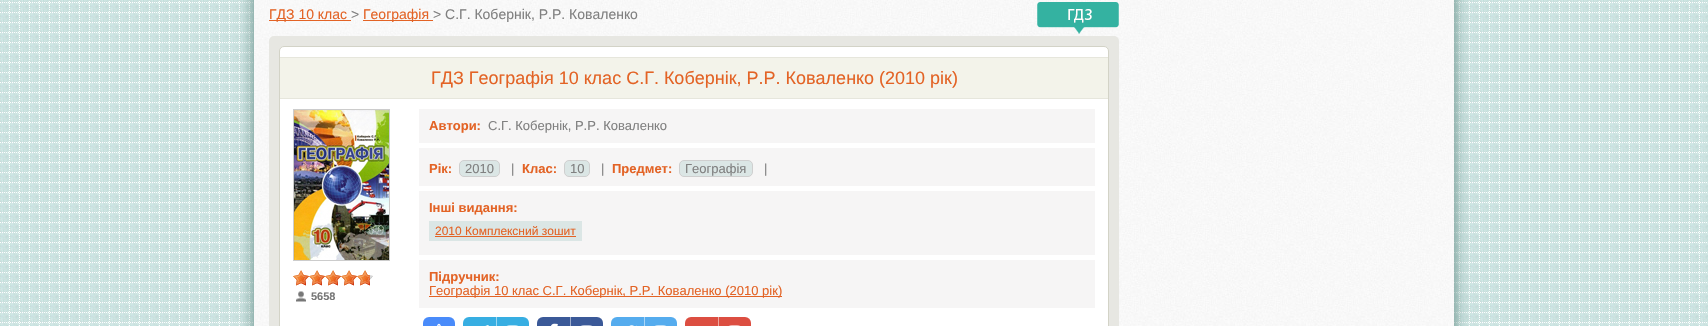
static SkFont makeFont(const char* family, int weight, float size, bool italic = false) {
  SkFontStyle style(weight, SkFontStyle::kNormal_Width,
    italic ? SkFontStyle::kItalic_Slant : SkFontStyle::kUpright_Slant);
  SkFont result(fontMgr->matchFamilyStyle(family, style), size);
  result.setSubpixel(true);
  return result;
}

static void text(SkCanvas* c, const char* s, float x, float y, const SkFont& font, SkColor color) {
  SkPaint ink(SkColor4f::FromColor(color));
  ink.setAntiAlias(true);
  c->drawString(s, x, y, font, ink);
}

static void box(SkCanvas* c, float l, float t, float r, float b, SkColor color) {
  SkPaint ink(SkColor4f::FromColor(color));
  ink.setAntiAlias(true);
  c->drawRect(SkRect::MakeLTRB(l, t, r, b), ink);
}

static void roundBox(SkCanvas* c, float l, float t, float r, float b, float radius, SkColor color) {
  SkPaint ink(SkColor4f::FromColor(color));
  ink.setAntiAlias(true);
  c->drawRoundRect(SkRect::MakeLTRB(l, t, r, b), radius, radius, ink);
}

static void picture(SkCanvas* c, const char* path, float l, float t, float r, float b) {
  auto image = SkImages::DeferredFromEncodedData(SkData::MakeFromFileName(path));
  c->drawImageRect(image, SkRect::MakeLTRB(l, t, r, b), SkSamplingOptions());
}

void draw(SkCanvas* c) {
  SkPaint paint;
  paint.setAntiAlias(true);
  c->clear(0xffffffff);
  picture(c, "img_01.png", 0, 0, 1708, 326);
  paint.setColor(0xff5f8982);
  paint.setMaskFilter(SkMaskFilter::MakeBlur(kNormal_SkBlurStyle, 7.5f));
  c->drawRect(SkRect::MakeLTRB(254, -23, 1454, 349), paint);
  paint.setMaskFilter(nullptr);
  picture(c, "img_02.png", 254, 0, 1454, 326);
  box(c, 269, 20, 351, 21, 0xffe36325);
  SkFont face1 = makeFont("Liberation Sans", 400, 14);
  text(c, "ГДЗ 10 клас", 269, 19, face1, 0xffe36325);
  text(c, ">", 351, 19, face1, 0xff808080);
  box(c, 363, 20, 433, 21, 0xffe36325);
  text(c, "Географія", 363, 19, face1, 0xffe36325);
  text(c, "> С.Г. Кобернік, Р.Р. Коваленко", 433, 19, face1, 0xff808080);
  picture(c, "img_03.png", 1037, 2, 1119, 34);
  roundBox(c, 269, 36, 1119, 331, 5, 0xffe7e7e2);
  paint.setColor(0xffffffff);
  c->drawRoundRect(SkRect::MakeLTRB(279.5f, 46.5f, 1108.5f, 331.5f), 4.5f, 4.5f, paint);
  paint.setStyle(SkPaint::kStroke_Style);
  paint.setStrokeWidth(1);
  paint.setColor(0xffd3d3c7);
  c->drawRoundRect(SkRect::MakeLTRB(279.5f, 46.5f, 1108.5f, 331.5f), 4.5f, 4.5f, paint);
  box(c, 280, 57, 1108, 58, 0xffe6e6dc);
  box(c, 280, 98, 1108, 99, 0xffe6e6dc);
  box(c, 280, 58, 1108, 98, 0xfff3f3ea);
  SkFont face2 = makeFont("Liberation Sans", 400, 18);
  text(c, "ГДЗ Географія 10 клас С.Г. Кобернік, Р.Р. Коваленко (2010 рік)", 431, 84, face2, 0xffe36325);
  paint.setColor(0xffcccccc);
  c->drawRect(SkRect::MakeLTRB(293.5f, 109.5f, 389.5f, 260.5f), paint);
  picture(c, "img_04.png", 294, 110, 389, 260);
  picture(c, "img_05.png", 370, 275, 373, 280);
  picture(c, "img_06.png", 293, 270, 370, 286);
  picture(c, "img_07.png", 296, 291, 306, 302);
  SkFont face3 = makeFont("Liberation Sans", 700, 11);
  text(c, "5658", 311, 300, face3, 0xff777777);
  box(c, 419, 109, 1095, 143, 0xfff6f5f5);
  SkFont face4 = makeFont("Liberation Sans", 700, 13);
  text(c, "Автори:", 429, 130, face4, 0xffe36325);
  SkFont face5 = makeFont("Liberation Sans", 400, 13);
  text(c, "С.Г. Кобернік, Р.Р. Коваленко", 488, 130, face5, 0xff808080);
  box(c, 419, 148, 1095, 186, 0xfff6f5f5);
  text(c, "Рік:", 429, 173, face4, 0xffe36325);
  paint.setStyle(SkPaint::kFill_Style);
  paint.setColor(0xffdbe6e5);
  c->drawRoundRect(SkRect::MakeLTRB(459.5f, 160.5f, 499.5f, 176.5f), 4.5f, 4.5f, paint);
  paint.setStyle(SkPaint::kStroke_Style);
  paint.setColor(0xffcfcfcf);
  c->drawRoundRect(SkRect::MakeLTRB(459.5f, 160.5f, 499.5f, 176.5f), 4.5f, 4.5f, paint);
  text(c, "2010", 465, 173, face5, 0xff808080);
  text(c, "|", 511, 173, face5, 0xff808080);
  text(c, "Клас:", 522, 173, face4, 0xffe36325);
  paint.setStyle(SkPaint::kFill_Style);
  paint.setColor(0xffdbe6e5);
  c->drawRoundRect(SkRect::MakeLTRB(564.5f, 160.5f, 589.5f, 176.5f), 4.5f, 4.5f, paint);
  paint.setStyle(SkPaint::kStroke_Style);
  paint.setColor(0xffcfcfcf);
  c->drawRoundRect(SkRect::MakeLTRB(564.5f, 160.5f, 589.5f, 176.5f), 4.5f, 4.5f, paint);
  text(c, "10", 570, 173, face5, 0xff808080);
  text(c, "|", 601, 173, face5, 0xff808080);
  text(c, "Предмет:", 612, 173, face4, 0xffe36325);
  paint.setStyle(SkPaint::kFill_Style);
  paint.setColor(0xffdbe6e5);
  c->drawRoundRect(SkRect::MakeLTRB(679.5f, 160.5f, 752.5f, 176.5f), 4.5f, 4.5f, paint);
  paint.setStyle(SkPaint::kStroke_Style);
  paint.setColor(0xffcfcfcf);
  c->drawRoundRect(SkRect::MakeLTRB(679.5f, 160.5f, 752.5f, 176.5f), 4.5f, 4.5f, paint);
  text(c, "Географія", 685, 173, face5, 0xff808080);
  text(c, "|", 764, 173, face5, 0xff808080);
  box(c, 419, 191, 1095, 255, 0xfff6f5f5);
  text(c, "Інші видання:", 429, 212, face4, 0xffe36325);
  box(c, 429, 221, 582, 241, 0xffdbe6e5);
  SkFont face6 = makeFont("Liberation Sans", 400, 12);
  text(c, "2010 Комплексний зошит", 435, 235, face6, 0xffe36325);
  box(c, 435, 236, 576, 237, 0xffe36325);
  box(c, 419, 260, 1095, 308, 0xfff6f5f5);
  text(c, "Підручник:", 429, 281, face4, 0xffe36325);
  box(c, 429, 296, 782, 297, 0xffe36325);
  text(c, "Географія 10 клас С.Г. Кобернік, Р.Р. Коваленко (2010 рік)", 429, 295, face5, 0xffe36325);
  roundBox(c, 423, 317, 455, 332, 6, 0xff498bfa);
  picture(c, "img_08.png", 437, 323, 441, 326);
  roundBox(c, 463, 317, 529, 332, 6, 0xff37aee2);
  picture(c, "img_09.png", 485, 325, 489, 326);
  box(c, 496, 317, 497, 326, 0xff9bd7f1);
  paint.setStrokeWidth(2);
  paint.setColor(0xffafdff3);
  c->drawRoundRect(SkRect::MakeLTRB(505, 326, 520, 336), 7.5f, 7.5f, paint);
  roundBox(c, 537, 317, 603, 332, 6, 0xff3b5998);
  picture(c, "img_10.png", 551, 323, 558, 326);
  box(c, 570, 317, 571, 326, 0xff9daccc);
  paint.setColor(0xffb1bdd6);
  c->drawRoundRect(SkRect::MakeLTRB(579, 326, 594, 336), 7.5f, 7.5f, paint);
  roundBox(c, 611, 317, 677, 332, 6, 0xff55acee);
  picture(c, "img_11.png", 629, 325, 637, 326);
  box(c, 644, 317, 645, 326, 0xffaad6f7);
  paint.setColor(0xffbbdef8);
  c->drawRoundRect(SkRect::MakeLTRB(653, 326, 668, 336), 7.5f, 7.5f, paint);
  roundBox(c, 685, 317, 751, 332, 6, 0xffdc4e41);
  box(c, 718, 317, 719, 326, 0xffeea7a0);
  paint.setColor(0xfff1b8b3);
  c->drawRoundRect(SkRect::MakeLTRB(727, 326, 742, 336), 7.5f, 7.5f, paint);
}
